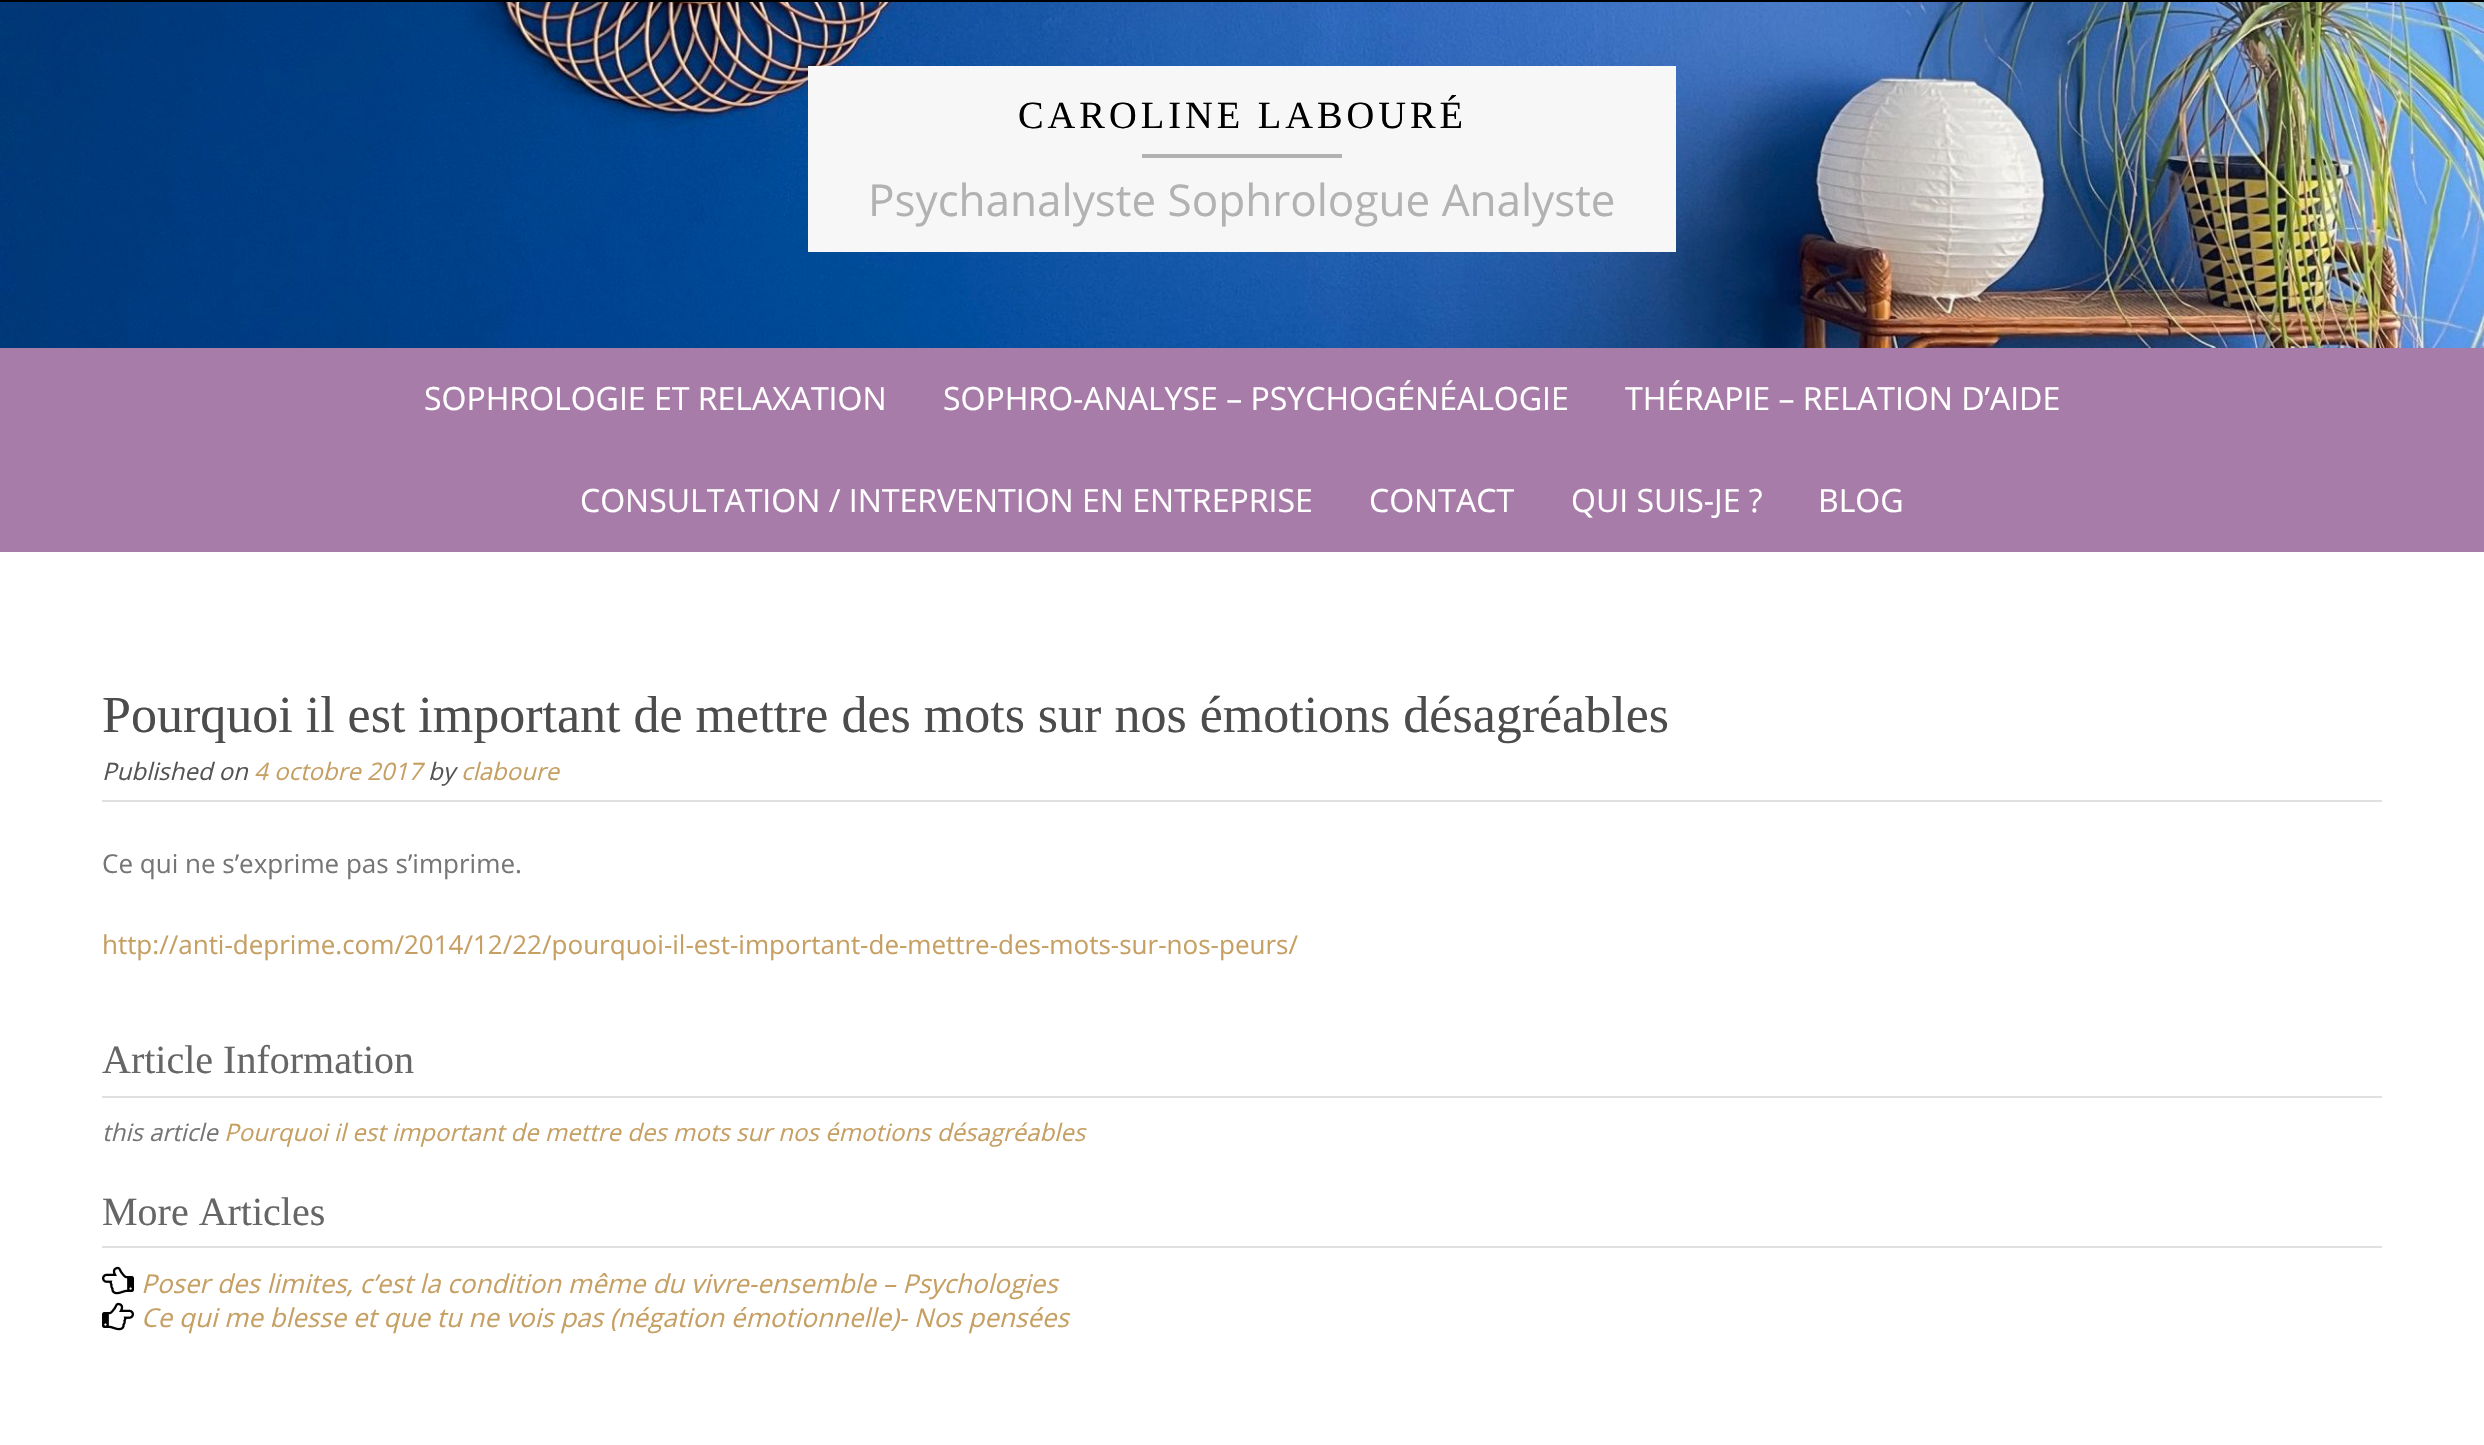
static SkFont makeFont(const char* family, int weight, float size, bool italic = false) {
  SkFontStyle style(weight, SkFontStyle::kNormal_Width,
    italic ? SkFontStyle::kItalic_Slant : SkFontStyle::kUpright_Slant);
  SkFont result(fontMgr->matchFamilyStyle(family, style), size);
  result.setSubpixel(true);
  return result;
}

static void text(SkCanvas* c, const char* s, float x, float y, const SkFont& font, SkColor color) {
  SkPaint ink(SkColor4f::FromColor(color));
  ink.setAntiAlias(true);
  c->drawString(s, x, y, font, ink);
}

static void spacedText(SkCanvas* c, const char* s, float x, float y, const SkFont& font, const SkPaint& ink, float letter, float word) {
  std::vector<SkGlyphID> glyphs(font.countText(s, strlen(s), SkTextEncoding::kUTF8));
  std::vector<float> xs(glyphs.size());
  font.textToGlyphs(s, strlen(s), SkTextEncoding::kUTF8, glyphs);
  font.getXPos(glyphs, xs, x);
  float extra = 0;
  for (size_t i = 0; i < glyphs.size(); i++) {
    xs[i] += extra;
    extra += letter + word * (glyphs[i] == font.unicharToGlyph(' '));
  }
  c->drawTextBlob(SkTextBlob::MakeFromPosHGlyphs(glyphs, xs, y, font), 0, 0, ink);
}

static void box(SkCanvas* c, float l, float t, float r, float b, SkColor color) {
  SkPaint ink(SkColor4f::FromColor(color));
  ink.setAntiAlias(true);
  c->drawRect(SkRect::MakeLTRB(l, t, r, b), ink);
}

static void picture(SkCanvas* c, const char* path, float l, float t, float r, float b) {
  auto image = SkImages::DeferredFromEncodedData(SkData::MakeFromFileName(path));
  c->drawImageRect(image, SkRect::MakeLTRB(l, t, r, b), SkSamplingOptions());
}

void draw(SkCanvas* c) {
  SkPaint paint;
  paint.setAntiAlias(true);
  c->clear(0xff000000);
  picture(c, "img_01.png", 0, 2, 2484, 348);
  box(c, 808, 66, 1676, 252, 0xfff7f7f7);
  SkFont face1 = makeFont("Liberation Serif", 400, 38.4f);
  paint.setColor(0xff000000);
  spacedText(c, "CAROLINE LABOURÉ", 1018, 128, face1, paint, 4, 0);
  box(c, 1142, 154, 1342, 158, 0xffb2b2b2);
  SkFont face2 = makeFont("Open Sans", 400, 44);
  text(c, "Psychanalyste Sophrologue Analyste", 868, 216, face2, 0xffb2b2b2);
  box(c, 0, 348, 2484, 552, 0xffa87ca8);
  SkFont face3 = makeFont("Open Sans", 400, 32);
  text(c, "SOPHROLOGIE ET RELAXATION", 424, 410, face3, 0xffffffff);
  text(c, "SOPHRO-ANALYSE – PSYCHOGÉNÉALOGIE", 943, 410, face3, 0xffffffff);
  text(c, "THÉRAPIE – RELATION D’AIDE", 1625, 410, face3, 0xffffffff);
  text(c, "CONSULTATION / INTERVENTION EN ENTREPRISE", 580, 512, face3, 0xffffffff);
  text(c, "CONTACT", 1369, 512, face3, 0xffffffff);
  text(c, "QUI SUIS-JE ?", 1571, 512, face3, 0xffffffff);
  text(c, "BLOG", 1818, 512, face3, 0xffffffff);
  box(c, 0, 552, 2484, 1445, 0xffffffff);
  box(c, 102, 800, 2382, 802, 0xffe0e0e0);
  SkFont face4 = makeFont("Liberation Serif", 400, 52);
  text(c, "Pourquoi il est important de mettre des mots sur nos émotions désagréables", 102, 732, face4, 0xff4c4c4c);
  SkFont face5 = makeFont("Open Sans", 400, 24, true);
  text(c, "Published on", 102, 780, face5, 0xff545454);
  text(c, "4 octobre 2017", 254, 780, face5, 0xffc69f63);
  text(c, "by", 428, 780, face5, 0xff545454);
  text(c, "claboure", 461, 780, face5, 0xffc69f63);
  SkFont face6 = makeFont("Open Sans", 400, 26);
  text(c, "Ce qui ne s’exprime pas s’imprime.", 102, 873, face6, 0xff767676);
  text(c, "http://anti-deprime.com/2014/12/22/pourquoi-il-est-important-de-mettre-des-mots-sur-nos-peurs/", 102, 954, face6, 0xffc69f63);
  box(c, 102, 1096, 2382, 1098, 0xffe0e0e0);
  SkFont face7 = makeFont("Liberation Serif", 400, 40);
  text(c, "Article Information", 102, 1073, face7, 0xff666666);
  text(c, "this article", 102, 1141, face5, 0xff767676);
  text(c, "Pourquoi il est important de mettre des mots sur nos émotions désagréables", 224, 1141, face5, 0xffc69f63);
  box(c, 102, 1246, 2382, 1248, 0xffe0e0e0);
  text(c, "More Articles", 102, 1225, face7, 0xff666666);
  picture(c, "img_02.png", 102, 1266, 134, 1295);
  SkFont face8 = makeFont("Open Sans", 400, 26, true);
  text(c, "Poser des limites, c’est la condition même du vivre-ensemble – Psychologies", 141, 1293, face8, 0xffc69f63);
  picture(c, "img_03.png", 102, 1302, 134, 1331);
  text(c, "Ce qui me blesse et que tu ne vois pas (négation émotionnelle)- Nos pensées", 141, 1327, face8, 0xffc69f63);
}
